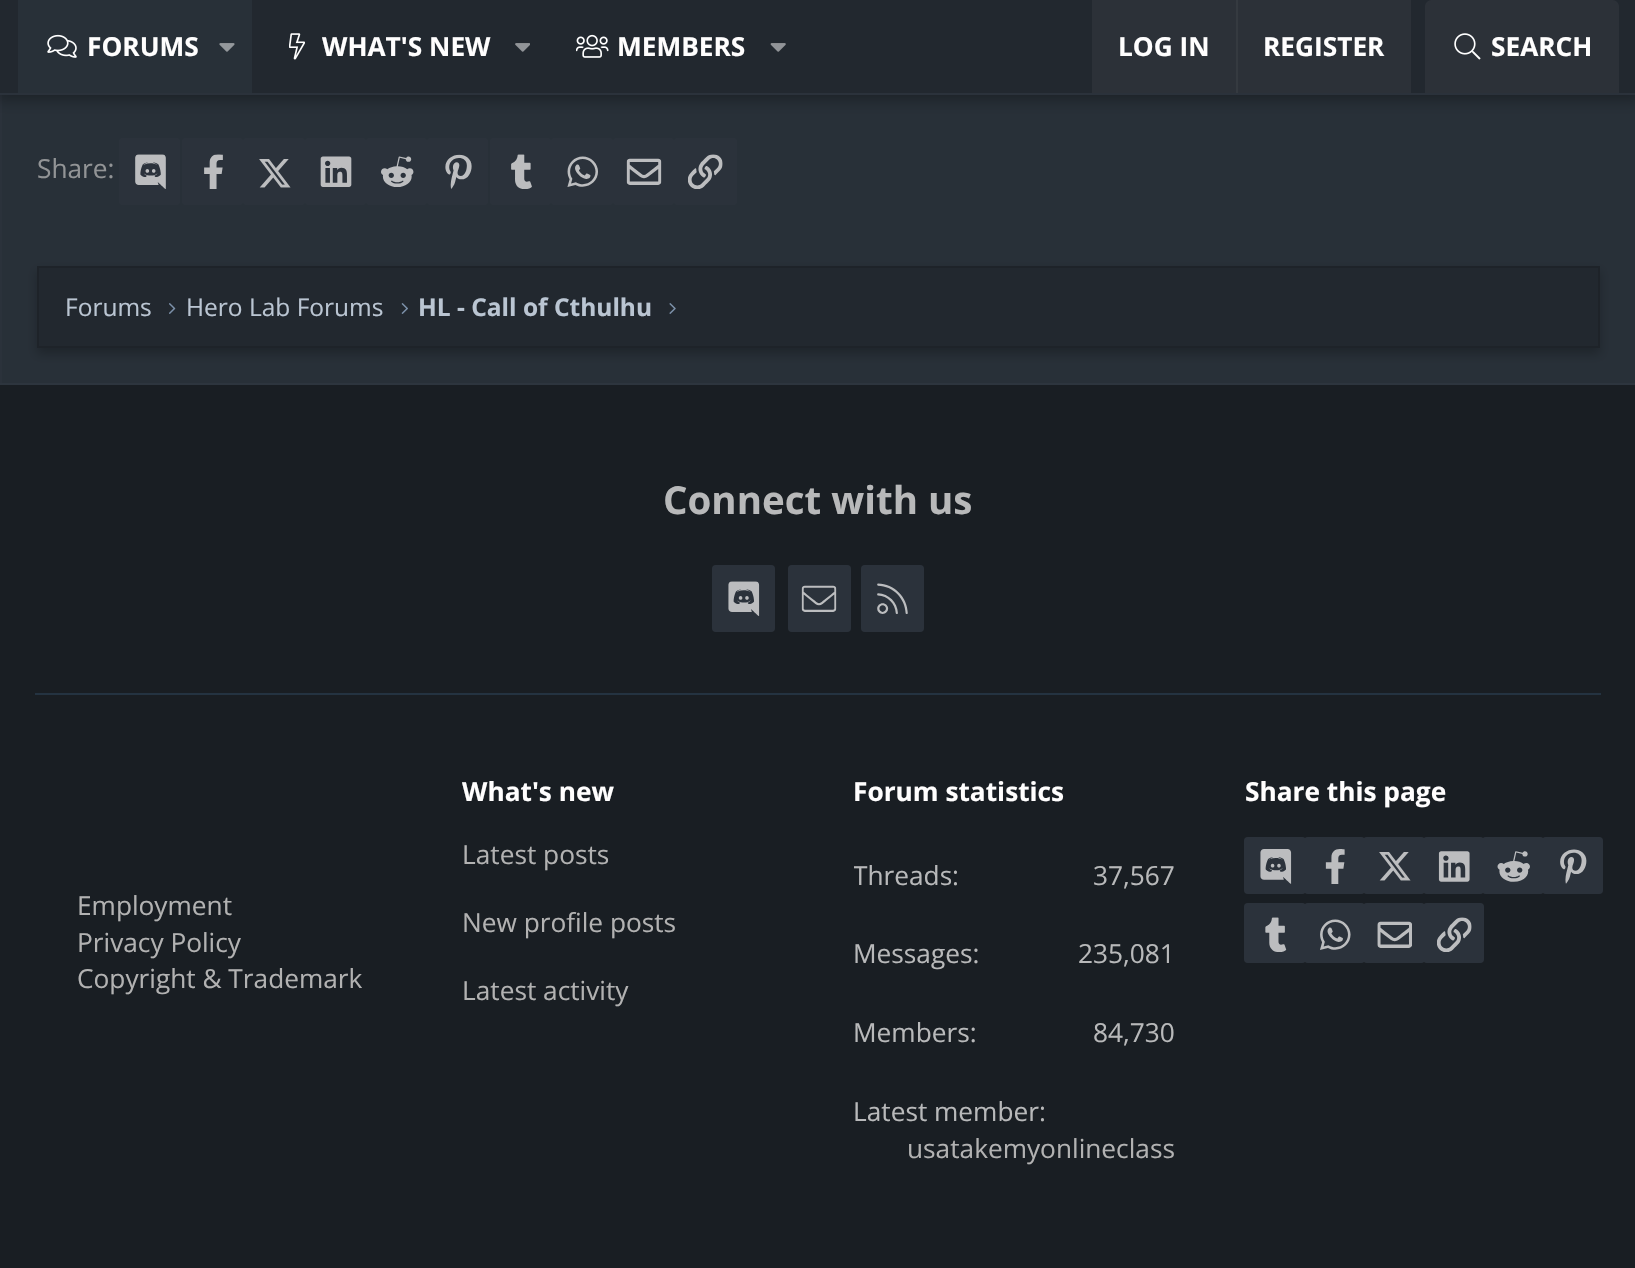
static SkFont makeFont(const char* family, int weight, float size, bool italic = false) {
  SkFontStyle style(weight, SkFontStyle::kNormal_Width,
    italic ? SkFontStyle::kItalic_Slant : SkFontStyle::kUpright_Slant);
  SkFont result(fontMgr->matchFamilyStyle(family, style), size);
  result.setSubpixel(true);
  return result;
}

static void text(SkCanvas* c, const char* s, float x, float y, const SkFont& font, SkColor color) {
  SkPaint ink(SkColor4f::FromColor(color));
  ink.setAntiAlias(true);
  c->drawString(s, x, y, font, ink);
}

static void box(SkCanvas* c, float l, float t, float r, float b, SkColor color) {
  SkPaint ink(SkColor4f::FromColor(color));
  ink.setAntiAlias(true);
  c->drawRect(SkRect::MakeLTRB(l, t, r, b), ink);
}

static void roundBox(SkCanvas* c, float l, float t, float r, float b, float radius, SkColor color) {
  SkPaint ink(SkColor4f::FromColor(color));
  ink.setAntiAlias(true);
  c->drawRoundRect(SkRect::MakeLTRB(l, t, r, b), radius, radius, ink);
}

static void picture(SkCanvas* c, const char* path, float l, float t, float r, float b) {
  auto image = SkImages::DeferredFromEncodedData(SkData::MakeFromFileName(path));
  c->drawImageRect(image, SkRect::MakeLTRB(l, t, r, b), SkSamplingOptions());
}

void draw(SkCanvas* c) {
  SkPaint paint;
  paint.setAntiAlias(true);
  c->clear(0xff283038);
  box(c, 0, 95, 2, 383, 0xff2b323b);
  paint.setColor(0x4d000000);
  paint.setMaskFilter(SkMaskFilter::MakeBlur(kNormal_SkBlurStyle, 7));
  c->drawRect(SkRect::MakeLTRB(-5, -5, 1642, 100), paint);
  paint.setMaskFilter(nullptr);
  box(c, 0, 0, 1635, 93, 0xff22282f);
  box(c, 0, 93, 1635, 95, 0xff2b323b);
  box(c, 18, 0, 252, 93, 0xff283038);
  picture(c, "img_01.png", 47, 34, 77, 58);
  SkFont face1 = makeFont("Open Sans", 700, 26.25f);
  text(c, "FORUMS", 87, 56, face1, 0xfffffefe);
  picture(c, "img_02.png", 219, 43, 235, 52);
  picture(c, "img_03.png", 289, 33, 305, 60);
  text(c, "WHAT'S NEW", 322, 56, face1, 0xfffffefe);
  picture(c, "img_04.png", 515, 43, 530, 52);
  picture(c, "img_05.png", 576, 34, 609, 58);
  text(c, "MEMBERS", 617, 56, face1, 0xfffffefe);
  picture(c, "img_06.png", 770, 43, 786, 52);
  box(c, 1092, 0, 1411, 93, 0xff2c3138);
  text(c, "LOG IN", 1118, 56, face1, 0xfffffefe);
  box(c, 1236, 0, 1238, 93, 0xff353a40);
  text(c, "REGISTER", 1263, 56, face1, 0xfffffefe);
  paint.setColor(0xff2c3138);
  c->drawPath(SkPathBuilder().moveTo(1432, 0).lineTo(1612, 0).cubicTo(1616, 0, 1619, 3, 1619, 7).lineTo(1619, 93).lineTo(1425, 93).lineTo(1425, 7).cubicTo(1425, 3, 1428, 0, 1432, 0).close().detach(), paint);
  picture(c, "img_07.png", 1454, 33, 1481, 60);
  text(c, "SEARCH", 1491, 56, face1, 0xfffffefe);
  SkFont face2 = makeFont("Open Sans", 400, 26.25f);
  text(c, "Share:", 37, 178, face2, 0xff929496);
  roundBox(c, 119, 138, 180, 205, 4, 0xff2b323b);
  picture(c, "img_08.png", 135, 154, 166, 189);
  roundBox(c, 182, 138, 243, 205, 4, 0xff2b323b);
  picture(c, "img_09.png", 204, 154, 223, 189);
  roundBox(c, 243, 138, 305, 205, 4, 0xff2b323b);
  picture(c, "img_10.png", 259, 159, 291, 188);
  roundBox(c, 305, 138, 366, 205, 4, 0xff2b323b);
  picture(c, "img_11.png", 320, 156, 352, 187);
  roundBox(c, 366, 138, 427, 205, 4, 0xff2b323b);
  picture(c, "img_12.png", 381, 156, 414, 187);
  roundBox(c, 427, 138, 488, 205, 4, 0xff2b323b);
  picture(c, "img_13.png", 445, 154, 472, 189);
  roundBox(c, 490, 138, 551, 205, 4, 0xff2b323b);
  picture(c, "img_14.png", 511, 154, 532, 189);
  roundBox(c, 551, 138, 613, 205, 4, 0xff2b323b);
  picture(c, "img_15.png", 567, 156, 598, 187);
  roundBox(c, 613, 138, 674, 205, 4, 0xff2b323b);
  picture(c, "img_16.png", 626, 158, 662, 185);
  roundBox(c, 674, 138, 737, 205, 4, 0xff2b323b);
  picture(c, "img_17.png", 688, 154, 723, 189);
  paint.setColor(0x3b000000);
  paint.setMaskFilter(SkMaskFilter::MakeBlur(kNormal_SkBlurStyle, 5));
  c->drawRect(SkRect::MakeLTRB(37, 271, 1600, 354), paint);
  paint.setMaskFilter(nullptr);
  paint.setColor(0xff22282f);
  c->drawRect(SkRect::MakeLTRB(38, 267, 1599, 347), paint);
  paint.setStyle(SkPaint::kStroke_Style);
  paint.setStrokeWidth(2);
  paint.setColor(0xff1e2329);
  c->drawRect(SkRect::MakeLTRB(38, 267, 1599, 347), paint);
  SkFont face3 = makeFont("Open Sans", 400, 24.5f);
  text(c, "Forums", 65, 316, face3, 0xffbac5d2);
  picture(c, "img_18.png", 169, 303, 176, 314);
  text(c, "Hero Lab Forums", 186, 316, face3, 0xffbac5d2);
  picture(c, "img_19.png", 401, 303, 408, 314);
  SkFont face4 = makeFont("Open Sans", 700, 24.5f);
  text(c, "HL - Call of Cthulhu", 418, 316, face4, 0xffbac5d2);
  picture(c, "img_20.png", 669, 303, 676, 314);
  box(c, 0, 385, 1635, 1268, 0xff191e23);
  box(c, 0, 383, 1635, 385, 0xff2d353e);
  box(c, 35, 693, 1601, 695, 0xff243341);
  SkFont face5 = makeFont("Open Sans", 700, 38.5f);
  text(c, "Connect with us", 663, 514, face5, 0xffb8b9ba);
  roundBox(c, 712, 565, 775, 632, 4, 0xff2b323b);
  picture(c, "img_21.png", 728, 581, 760, 616);
  roundBox(c, 788, 565, 851, 632, 4, 0xff2b323b);
  picture(c, "img_22.png", 801, 585, 837, 612);
  roundBox(c, 861, 565, 924, 632, 4, 0xff2b323b);
  picture(c, "img_23.png", 877, 583, 908, 614);
  text(c, "What's new", 462, 801, face1, 0xfffffefe);
  text(c, "Latest posts", 462, 864, face2, 0xffb2b2b2);
  text(c, "New profile posts", 462, 932, face2, 0xffb2b2b2);
  text(c, "Latest activity", 462, 1000, face2, 0xffb2b2b2);
  text(c, "Forum statistics", 853, 801, face1, 0xfffffefe);
  c->save();
  c->clipRect(SkRect::MakeLTRB(854, 837, 1174, 915));
  text(c, "Threads", 853, 885, face2, 0xffb8b9ba);
  c->restore();
  text(c, ":", 952, 885, face2, 0xffb8b9ba);
  text(c, "37,567", 1093, 885, face2, 0xffb8b9ba);
  text(c, "Messages:", 853, 963, face2, 0xffb8b9ba);
  text(c, "235,081", 1078, 963, face2, 0xffb8b9ba);
  text(c, "Members:", 853, 1042, face2, 0xffb8b9ba);
  text(c, "84,730", 1093, 1042, face2, 0xffb8b9ba);
  text(c, "Latest member:", 853, 1121, face2, 0xffb8b9ba);
  text(c, "usatakemyonlineclass", 907, 1158, face2, 0xffb2b2b2);
  text(c, "Share this page", 1245, 801, face1, 0xfffffefe);
  roundBox(c, 1244, 837, 1306, 894, 4, 0xff2b323b);
  picture(c, "img_24.png", 1260, 849, 1292, 884);
  roundBox(c, 1304, 837, 1365, 894, 4, 0xff2b323b);
  picture(c, "img_25.png", 1325, 849, 1345, 884);
  roundBox(c, 1363, 837, 1425, 894, 4, 0xff2b323b);
  picture(c, "img_10.png", 1379, 852, 1411, 881);
  roundBox(c, 1423, 837, 1484, 894, 4, 0xff2b323b);
  picture(c, "img_26.png", 1438, 851, 1470, 882);
  roundBox(c, 1482, 837, 1544, 894, 4, 0xff2b323b);
  picture(c, "img_27.png", 1497, 851, 1530, 882);
  roundBox(c, 1542, 837, 1603, 894, 4, 0xff2b323b);
  picture(c, "img_28.png", 1560, 849, 1587, 884);
  roundBox(c, 1244, 903, 1306, 963, 4, 0xff2b323b);
  picture(c, "img_29.png", 1265, 917, 1287, 952);
  roundBox(c, 1304, 903, 1365, 963, 4, 0xff2b323b);
  picture(c, "img_30.png", 1320, 919, 1351, 950);
  roundBox(c, 1363, 903, 1425, 963, 4, 0xff2b323b);
  picture(c, "img_31.png", 1377, 921, 1412, 948);
  roundBox(c, 1423, 903, 1484, 963, 4, 0xff2b323b);
  picture(c, "img_17.png", 1437, 917, 1472, 952);
  text(c, "Employment", 77, 915, face2, 0xffb2b2b2);
  text(c, "Privacy Policy", 77, 952, face2, 0xffb2b2b2);
  text(c, "Copyright & Trademark", 77, 988, face2, 0xffb2b2b2);
}
